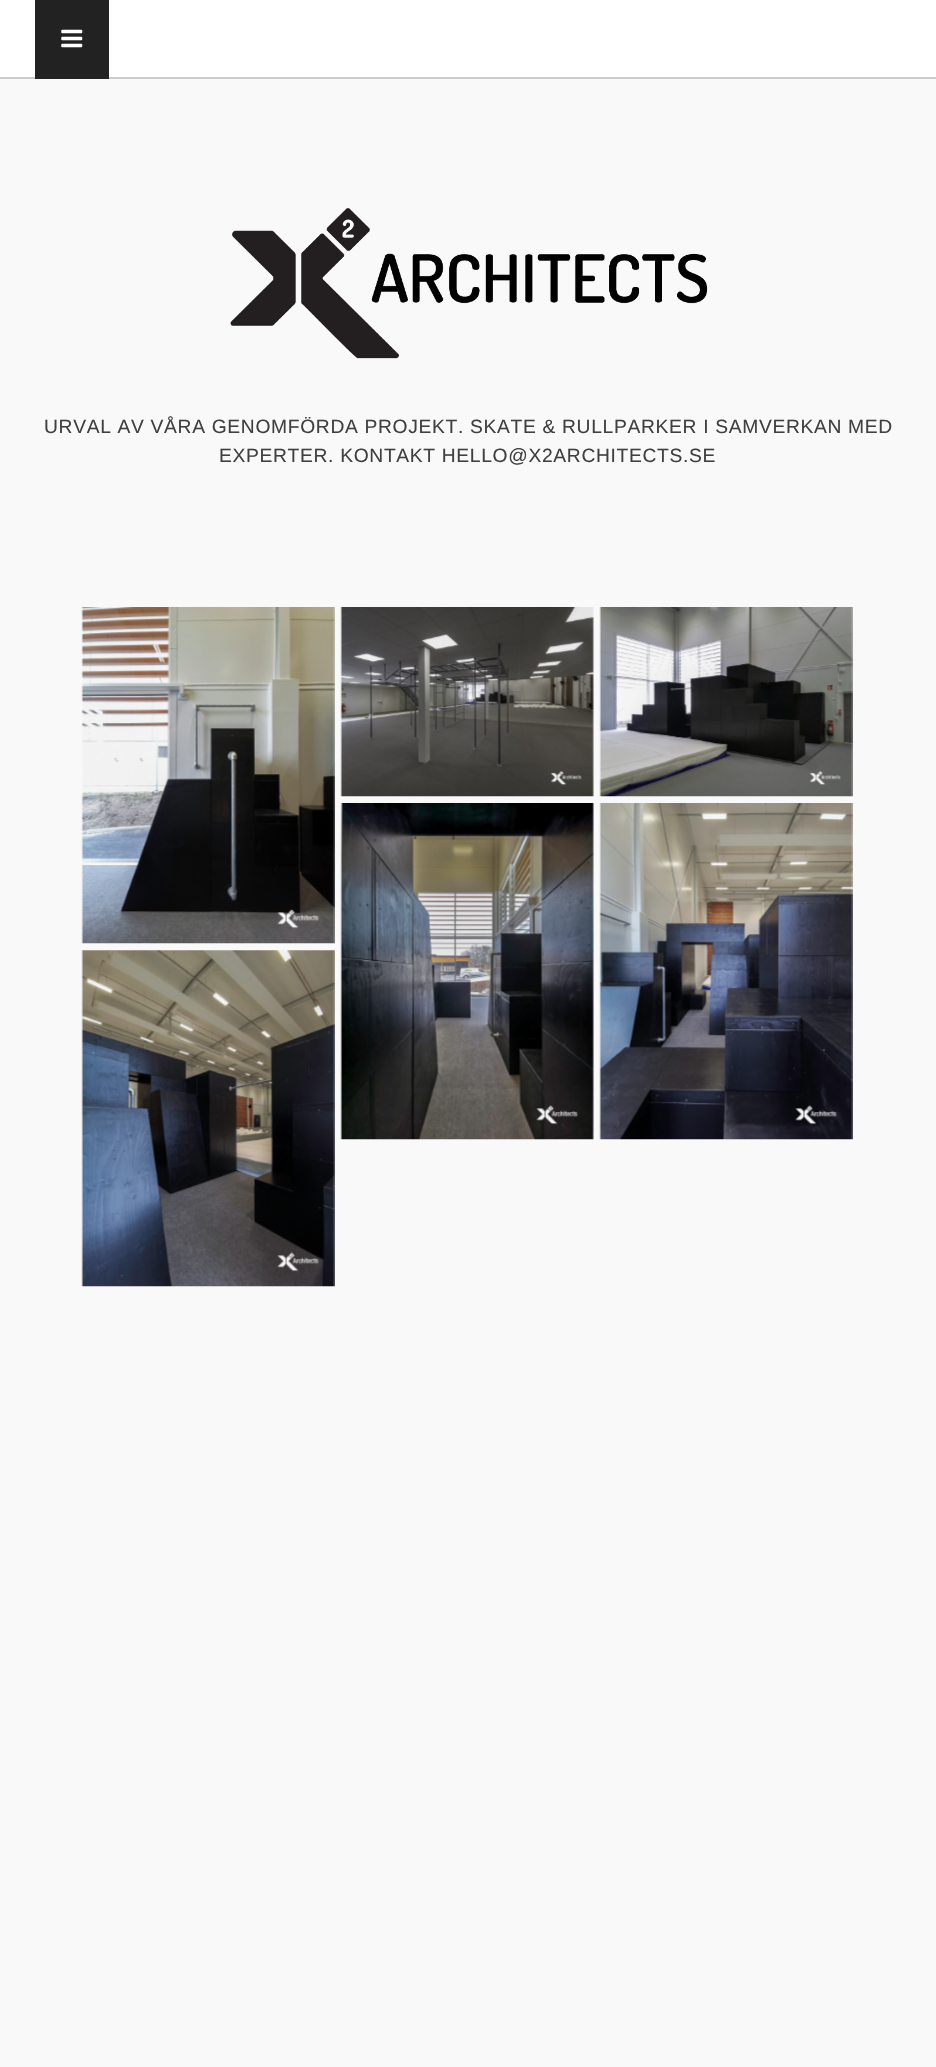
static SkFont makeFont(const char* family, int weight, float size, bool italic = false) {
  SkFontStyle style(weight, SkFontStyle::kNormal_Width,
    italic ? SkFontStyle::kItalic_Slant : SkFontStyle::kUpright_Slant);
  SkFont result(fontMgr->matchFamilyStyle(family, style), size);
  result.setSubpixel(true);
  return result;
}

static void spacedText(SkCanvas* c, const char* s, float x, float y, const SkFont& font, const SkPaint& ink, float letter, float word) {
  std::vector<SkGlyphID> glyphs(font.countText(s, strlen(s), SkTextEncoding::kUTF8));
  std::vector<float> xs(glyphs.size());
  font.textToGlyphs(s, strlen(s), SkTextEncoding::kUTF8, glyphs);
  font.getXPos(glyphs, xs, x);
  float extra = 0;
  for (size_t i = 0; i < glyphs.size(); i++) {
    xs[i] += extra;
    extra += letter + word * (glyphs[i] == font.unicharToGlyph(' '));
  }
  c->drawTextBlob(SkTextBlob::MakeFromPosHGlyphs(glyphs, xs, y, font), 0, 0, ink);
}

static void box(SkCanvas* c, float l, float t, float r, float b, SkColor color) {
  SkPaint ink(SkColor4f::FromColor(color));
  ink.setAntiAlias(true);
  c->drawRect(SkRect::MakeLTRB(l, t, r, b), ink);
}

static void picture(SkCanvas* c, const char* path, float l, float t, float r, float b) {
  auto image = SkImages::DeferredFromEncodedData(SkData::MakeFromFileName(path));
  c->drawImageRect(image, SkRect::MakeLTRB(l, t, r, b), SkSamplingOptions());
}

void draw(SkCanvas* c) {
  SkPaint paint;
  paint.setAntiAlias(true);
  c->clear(0xfff9f9f9);
  box(c, 0, 0, 936, 77, 0xffffffff);
  box(c, 0, 77, 936, 79, 0xffcccccc);
  box(c, 35, 0, 109, 79, 0xff222222);
  picture(c, "img_01.png", 61, 29, 83, 48);
  picture(c, "img_02.png", 230, 208, 708, 359);
  SkFont face1 = makeFont("Liberation Sans", 400, 19.25f);
  paint.setColor(0xff404040);
  spacedText(c, "URVAL AV VÅRA GENOMFÖRDA PROJEKT. SKATE & RULLPARKER I SAMVERKAN MED", 44, 433, face1, paint, 0.67f, 0);
  spacedText(c, "EXPERTER. KONTAKT HELLO@X2ARCHITECTS.SE", 219, 462, face1, paint, 0.67f, 0);
  picture(c, "img_03.png", 81, 607, 335, 944);
  picture(c, "img_04.png", 340, 607, 594, 797);
  picture(c, "img_05.png", 599, 607, 853, 797);
  picture(c, "img_06.png", 81, 950, 335, 1287);
  picture(c, "img_07.png", 340, 803, 594, 1140);
  picture(c, "img_08.png", 599, 803, 853, 1140);
}
